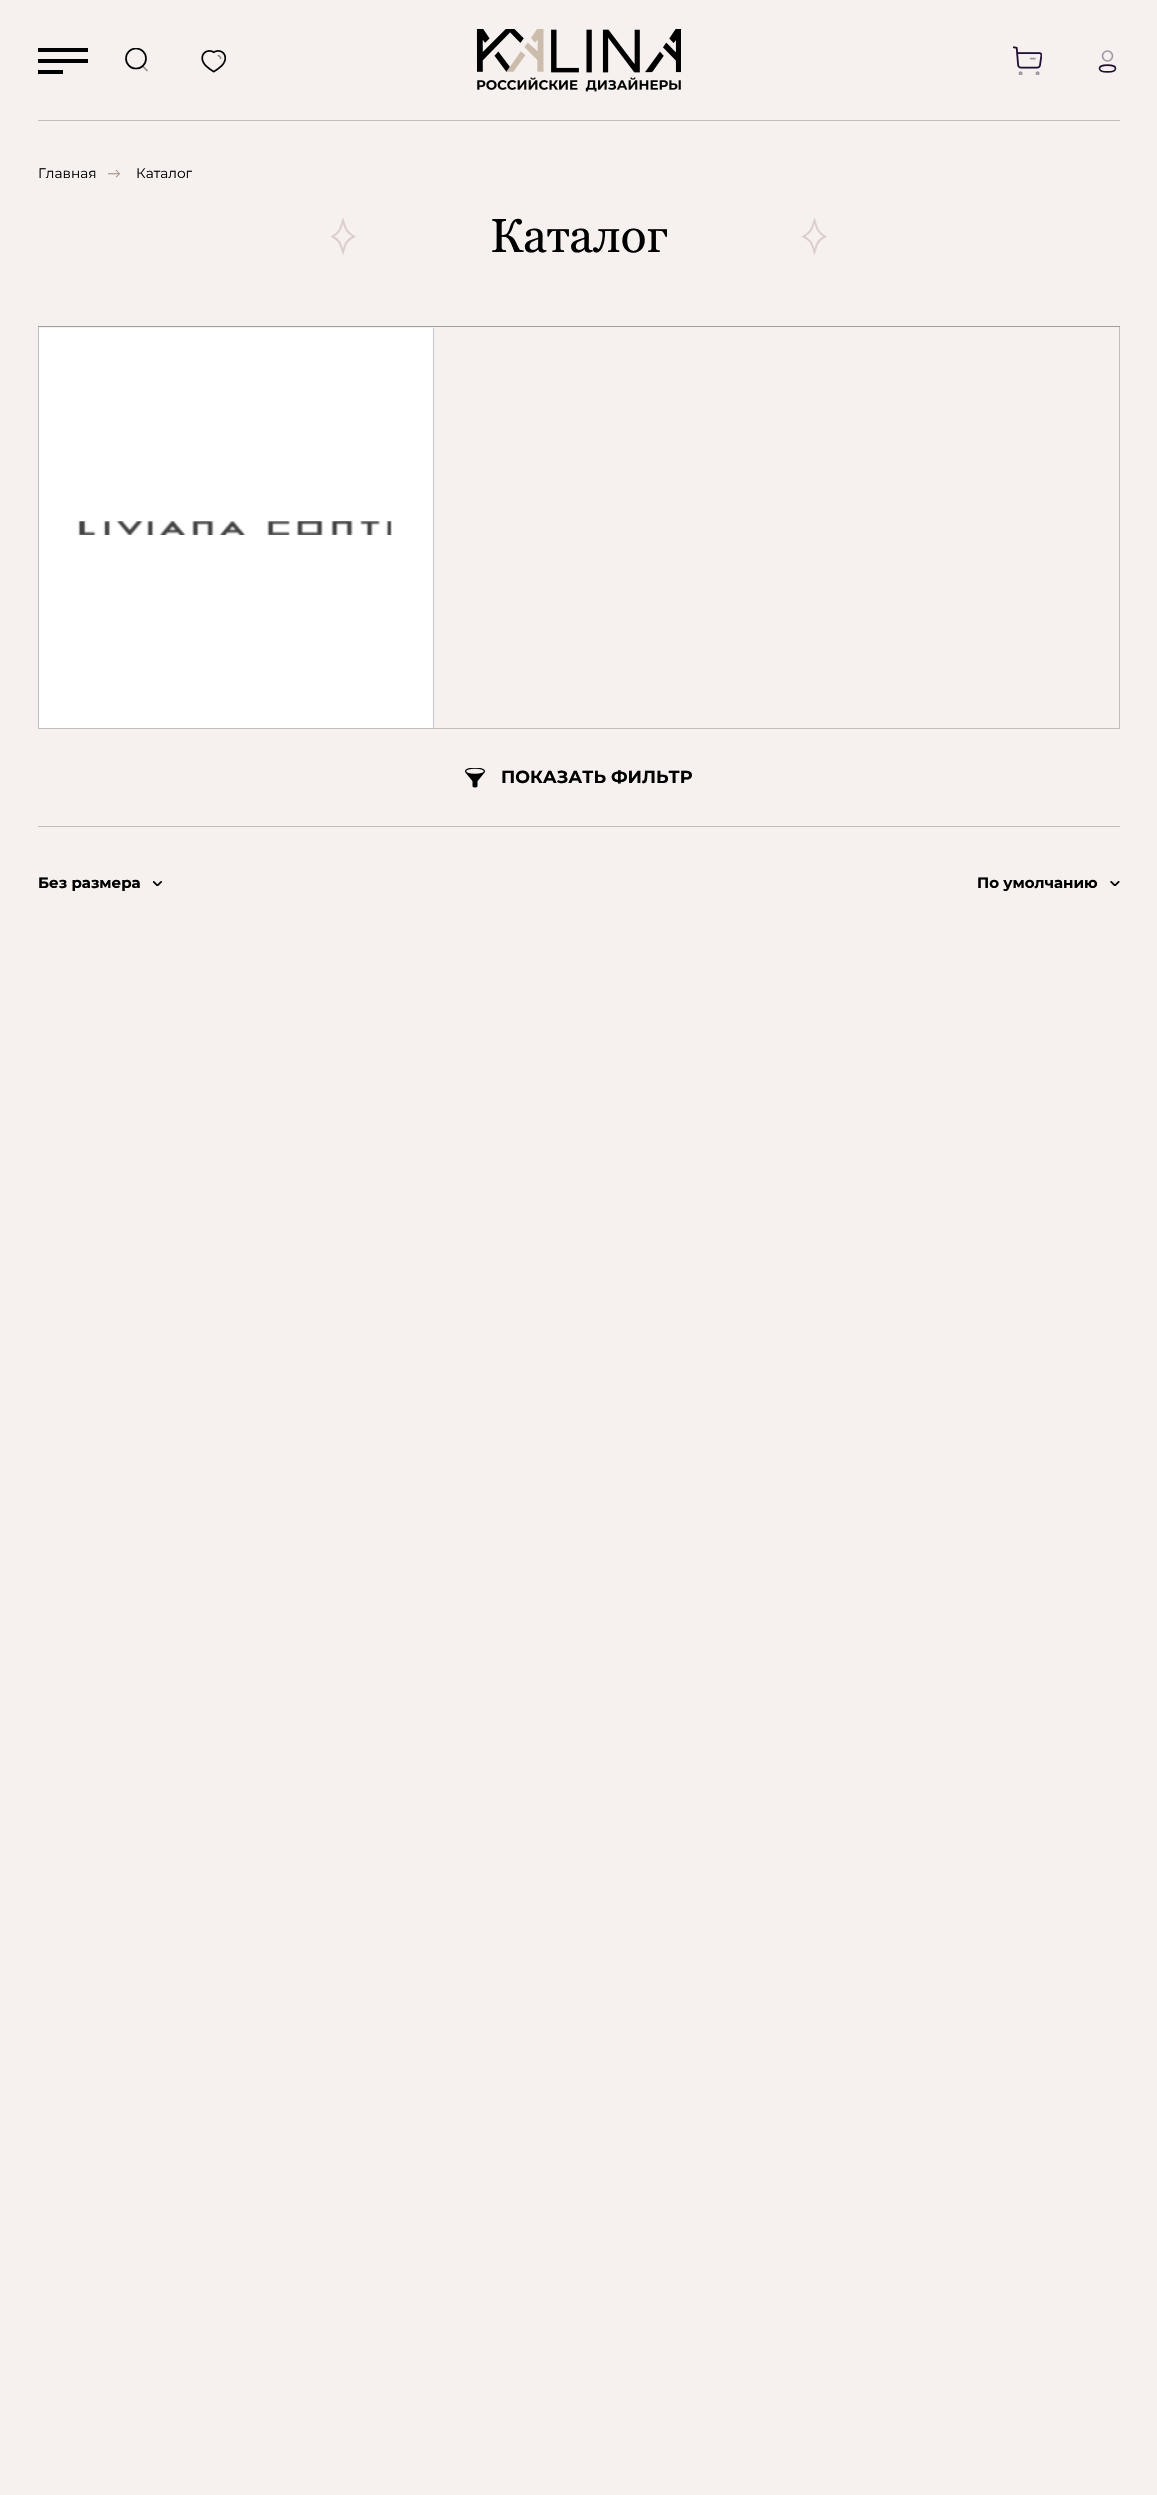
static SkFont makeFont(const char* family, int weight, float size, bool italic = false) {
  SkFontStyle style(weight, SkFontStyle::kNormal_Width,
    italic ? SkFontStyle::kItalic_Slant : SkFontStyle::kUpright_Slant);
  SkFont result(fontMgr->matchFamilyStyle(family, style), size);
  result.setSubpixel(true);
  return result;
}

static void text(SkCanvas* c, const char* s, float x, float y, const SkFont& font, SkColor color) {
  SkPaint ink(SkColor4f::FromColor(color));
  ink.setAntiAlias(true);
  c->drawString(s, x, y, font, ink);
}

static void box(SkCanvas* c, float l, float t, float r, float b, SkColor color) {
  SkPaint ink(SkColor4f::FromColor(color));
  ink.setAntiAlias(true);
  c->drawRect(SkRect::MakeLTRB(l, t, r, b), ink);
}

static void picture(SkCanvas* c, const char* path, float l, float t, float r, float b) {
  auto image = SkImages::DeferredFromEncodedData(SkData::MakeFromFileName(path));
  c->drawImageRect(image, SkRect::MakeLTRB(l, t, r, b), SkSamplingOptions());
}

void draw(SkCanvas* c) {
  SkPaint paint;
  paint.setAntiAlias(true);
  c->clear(0xfff6f0ef);
  box(c, 38, 48, 88, 52, 0xff000000);
  box(c, 38, 59, 88, 63, 0xff000000);
  box(c, 38, 70, 63, 74, 0xff000000);
  c->save();
  c->clipRect(SkRect::MakeLTRB(125, 48, 148, 72));
  paint.setStyle(SkPaint::kStroke_Style);
  paint.setStrokeWidth(1.7f);
  paint.setColor(0xff000000);
  c->drawCircle(136, 58.5f, 10, paint);
  c->restore();
  paint.setStrokeCap(SkPaint::kRound_Cap);
  paint.setStrokeJoin(SkPaint::kRound_Join);
  paint.setColor(0x66000000);
  c->drawPath(SkPathBuilder().moveTo(143, 66.5f).lineTo(147, 70.5f).detach(), paint);
  picture(c, "img_01.png", 201, 50, 226, 73);
  picture(c, "img_02.png", 476, 29, 681, 92);
  picture(c, "img_03.png", 1013, 46, 1042, 75);
  paint.setStrokeWidth(1.6f);
  paint.setStrokeCap(SkPaint::kButt_Cap);
  paint.setStrokeJoin(SkPaint::kMiter_Join);
  paint.setColor(0xffa096a3);
  c->drawCircle(1107.5f, 56, 5, paint);
  paint.setStrokeCap(SkPaint::kRound_Cap);
  paint.setStrokeJoin(SkPaint::kRound_Join);
  paint.setColor(0xff200e32);
  c->drawPath(SkPathBuilder().moveTo(1099.5f, 68.5f).cubicTo(1099.5f, 64, 1115.5f, 64, 1115.5f, 68.5f).cubicTo(1115.5f, 73, 1099.5f, 73, 1099.5f, 68.5f).close().detach(), paint);
  box(c, 38, 120, 1120, 121, 0xffc0bdbc);
  paint.setStrokeWidth(1);
  paint.setStrokeCap(SkPaint::kButt_Cap);
  paint.setStrokeJoin(SkPaint::kMiter_Join);
  paint.setColor(0xffc0bdbc);
  c->drawRect(SkRect::MakeLTRB(38.5f, 326.5f, 1119.5f, 728.5f), paint);
  box(c, 38, 326, 1120, 327, 0xffa09e9e);
  SkFont face1 = makeFont("Montserrat", 400, 13.75f);
  text(c, "Главная", 38, 178, face1, 0xff000000);
  picture(c, "img_04.png", 108, 170, 120, 178);
  text(c, "Каталог", 136, 178, face1, 0xff000000);
  paint.setStrokeWidth(2);
  paint.setColor(0xffdbcecd);
  c->drawPath(SkPathBuilder().moveTo(345, 245.5f).lineTo(343, 252).cubicTo(340.5f, 244, 340, 240.5f, 332.5f, 236.5f).cubicTo(340, 232, 340.5f, 228.5f, 343, 220.5f).cubicTo(345.5f, 228.5f, 346, 232, 354, 236.5f).cubicTo(350, 238.5f, 346.5f, 241, 345, 245.5f).close().detach(), paint);
  SkFont face2 = makeFont("Georgia", 400, 47.5f);
  text(c, "Каталог", 490, 252, face2, 0xff000000);
  c->drawPath(SkPathBuilder().moveTo(816.5f, 245.5f).lineTo(814.5f, 252).cubicTo(812, 244, 811.5f, 240.5f, 803.5f, 236.5f).cubicTo(811.5f, 232, 812, 228.5f, 814.5f, 220.5f).cubicTo(817, 228.5f, 817.5f, 232, 825, 236.5f).cubicTo(821, 238.5f, 818, 241, 816.5f, 245.5f).close().detach(), paint);
  box(c, 39, 328, 433, 728, 0xffffffff);
  box(c, 433, 328, 434, 728, 0xffc6c6c6);
  picture(c, "img_05.png", 78, 521, 392, 535);
  picture(c, "img_06.png", 465, 768, 485, 788);
  SkFont face3 = makeFont("Montserrat", 700, 17.5f);
  text(c, "ПОКАЗАТЬ ФИЛЬТР", 501, 783, face3, 0xff000000);
  box(c, 38, 826, 1120, 827, 0xffc0bdbc);
  SkFont face4 = makeFont("Montserrat", 700, 15);
  text(c, "Без размера", 38, 888, face4, 0xff000000);
  picture(c, "img_07.png", 153, 881, 163, 886);
  text(c, "По умолчанию", 977, 888, face4, 0xff000000);
  picture(c, "img_08.png", 1110, 881, 1120, 886);
}
